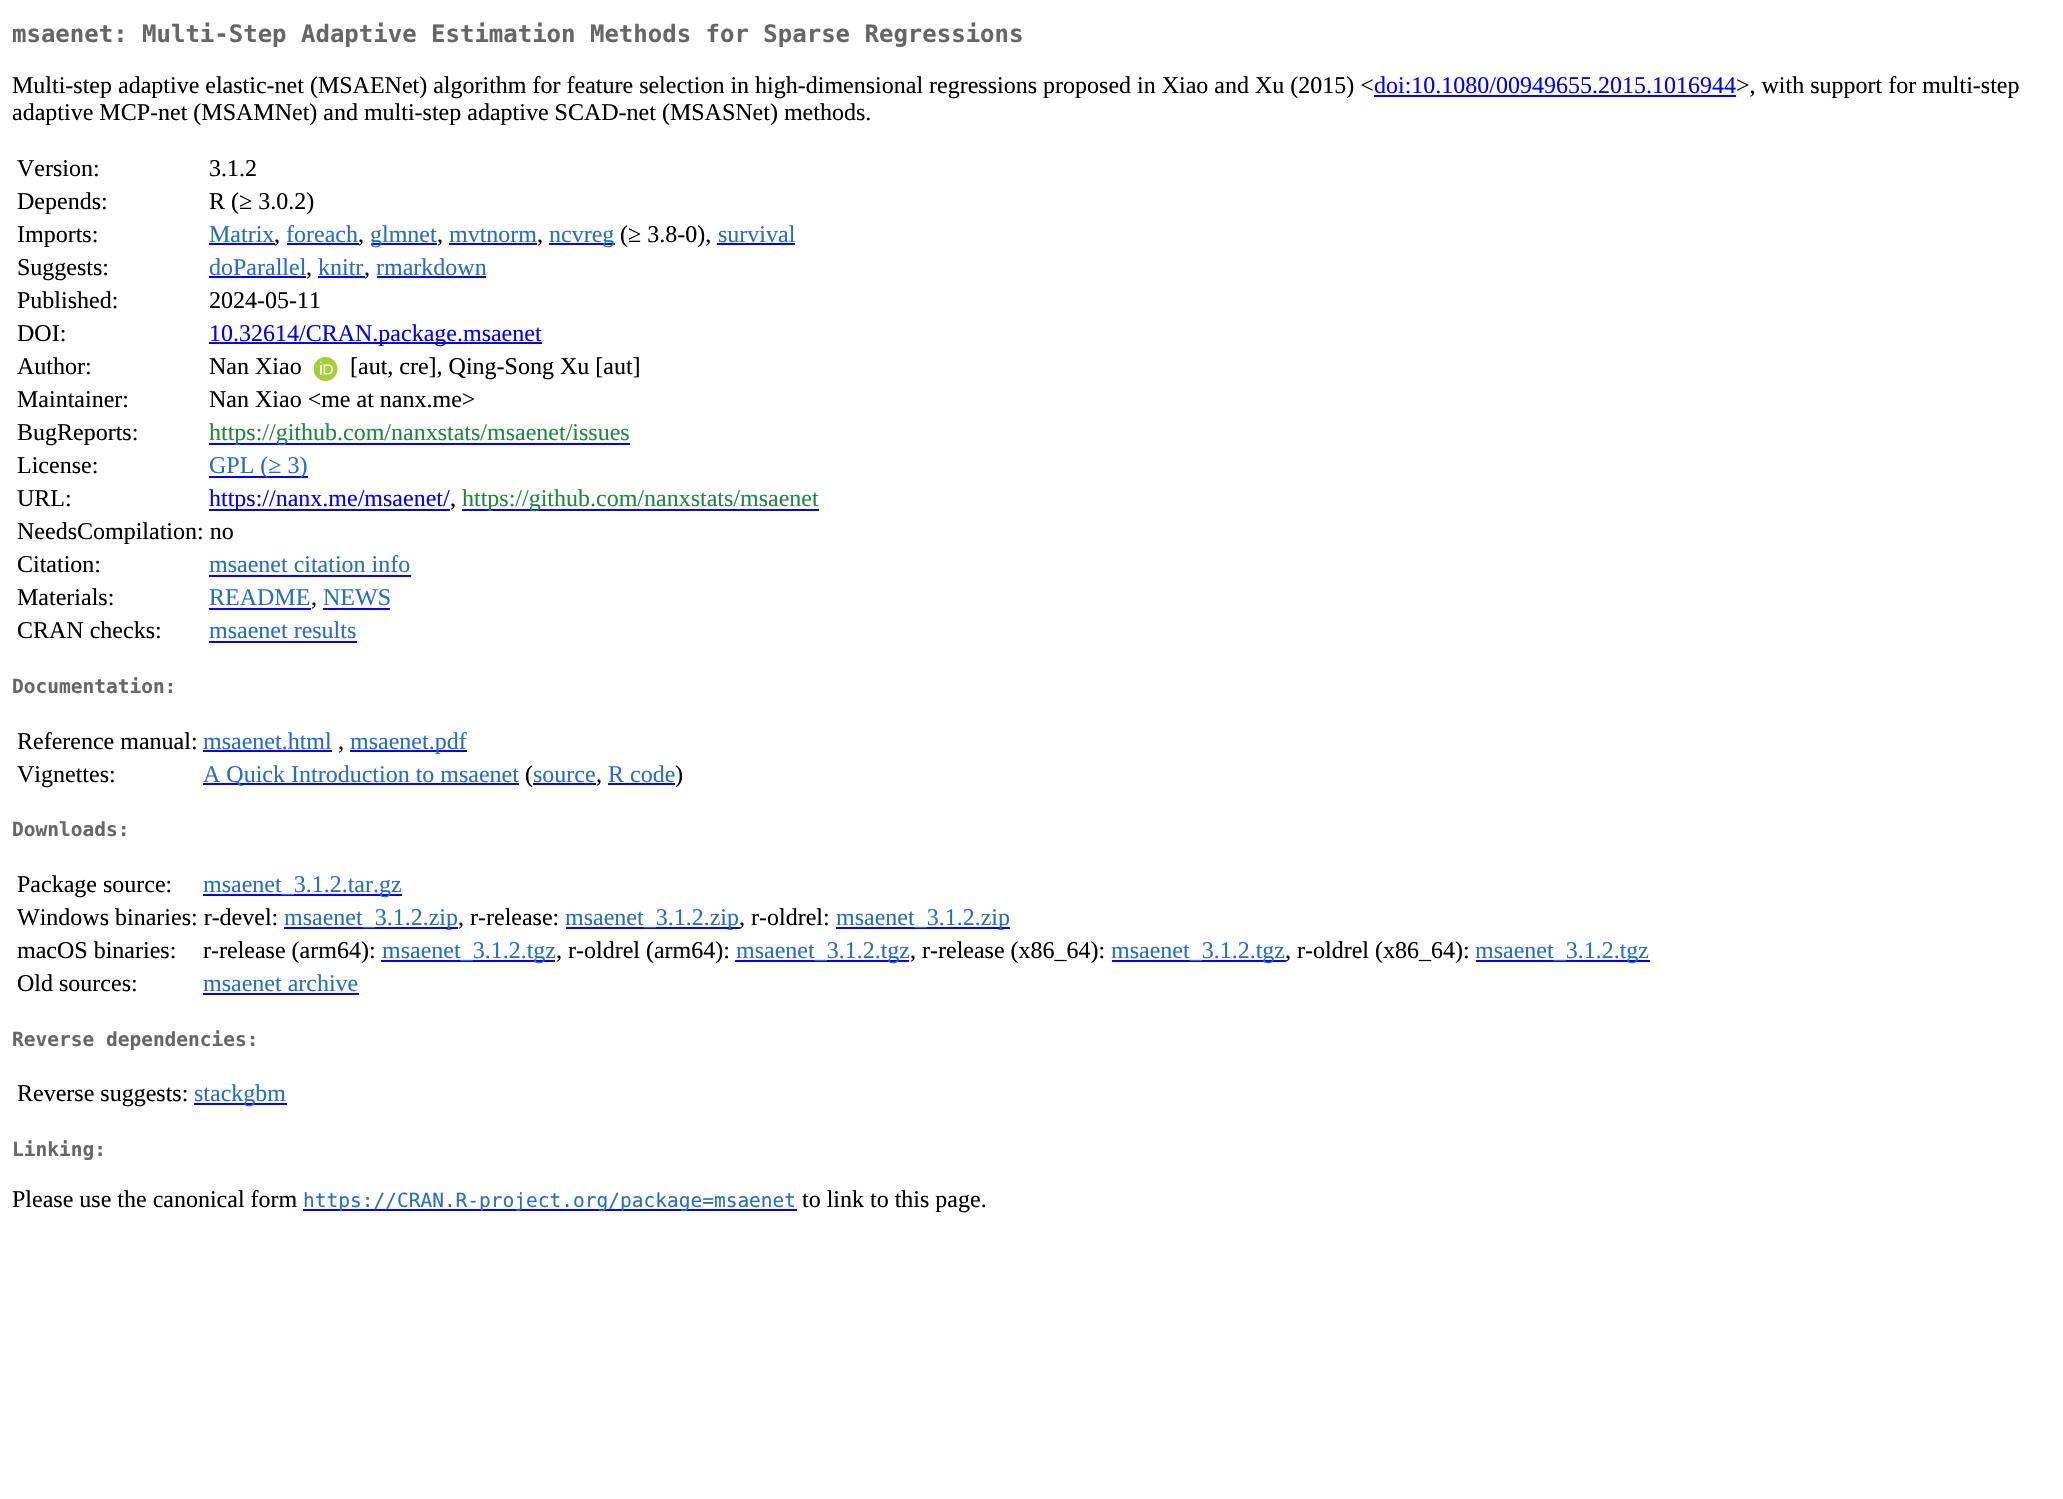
static SkFont makeFont(const char* family, int weight, float size, bool italic = false) {
  SkFontStyle style(weight, SkFontStyle::kNormal_Width,
    italic ? SkFontStyle::kItalic_Slant : SkFontStyle::kUpright_Slant);
  SkFont result(fontMgr->matchFamilyStyle(family, style), size);
  result.setSubpixel(true);
  return result;
}

static void text(SkCanvas* c, const char* s, float x, float y, const SkFont& font, SkColor color) {
  SkPaint ink(SkColor4f::FromColor(color));
  ink.setAntiAlias(true);
  c->drawString(s, x, y, font, ink);
}

static void box(SkCanvas* c, float l, float t, float r, float b, SkColor color) {
  SkPaint ink(SkColor4f::FromColor(color));
  ink.setAntiAlias(true);
  c->drawRect(SkRect::MakeLTRB(l, t, r, b), ink);
}

static void picture(SkCanvas* c, const char* path, float l, float t, float r, float b) {
  auto image = SkImages::DeferredFromEncodedData(SkData::MakeFromFileName(path));
  c->drawImageRect(image, SkRect::MakeLTRB(l, t, r, b), SkSamplingOptions());
}

void draw(SkCanvas* c) {
  SkPaint paint;
  paint.setAntiAlias(true);
  c->clear(0xffffffff);
  SkFont face1 = makeFont("DejaVu Sans Mono", 700, 24);
  text(c, "msaenet: Multi-Step Adaptive Estimation Methods for Sparse Regressions", 12, 42, face1, 0xff666666);
  SkFont face2 = makeFont("Liberation Serif", 400, 24);
  text(c, "Multi-step adaptive elastic-net (MSAENet) algorithm for feature selection in high-dimensional regressions proposed in Xiao and Xu (2015) <", 12, 93, face2, 0xff000000);
  text(c, "doi:10.1080/00949655.2015.1016944", 1374, 93, face2, 0xff0000ff);
  box(c, 1374, 95, 1736, 97, 0xff0000ff);
  text(c, ">, with support for multi-step", 1736, 93, face2, 0xff000000);
  text(c, "adaptive MCP-net (MSAMNet) and multi-step adaptive SCAD-net (MSASNet) methods.", 12, 120, face2, 0xff000000);
  text(c, "Version:", 17, 176, face2, 0xff000000);
  text(c, "3.1.2", 209, 176, face2, 0xff000000);
  text(c, "Depends:", 17, 209, face2, 0xff000000);
  text(c, "R (≥ 3.0.2)", 209, 209, face2, 0xff000000);
  text(c, "Imports:", 17, 242, face2, 0xff000000);
  text(c, "Matrix", 209, 242, face2, 0xff276dc3);
  box(c, 209, 243, 275, 245, 0xff0000ff);
  text(c, ",", 274, 242, face2, 0xff000000);
  text(c, "foreach", 286, 242, face2, 0xff276dc3);
  box(c, 287, 243, 359, 245, 0xff0000ff);
  text(c, ",", 358, 242, face2, 0xff000000);
  box(c, 371, 243, 437, 245, 0xff0000ff);
  text(c, "glmnet", 370, 242, face2, 0xff276dc3);
  text(c, ",", 437, 242, face2, 0xff000000);
  text(c, "mvtnorm", 449, 242, face2, 0xff276dc3);
  box(c, 449, 243, 537, 245, 0xff0000ff);
  text(c, ",", 537, 242, face2, 0xff000000);
  box(c, 549, 243, 615, 245, 0xff0000ff);
  text(c, "ncvreg", 549, 242, face2, 0xff276dc3);
  text(c, "(≥ 3.8-0),", 620, 242, face2, 0xff000000);
  text(c, "survival", 718, 242, face2, 0xff276dc3);
  box(c, 717, 243, 795, 245, 0xff0000ff);
  text(c, "Suggests:", 17, 275, face2, 0xff000000);
  text(c, "doParallel", 209, 275, face2, 0xff276dc3);
  box(c, 209, 276, 306, 278, 0xff0000ff);
  text(c, ",", 306, 275, face2, 0xff000000);
  text(c, "knitr", 318, 275, face2, 0xff276dc3);
  box(c, 318, 276, 365, 278, 0xff0000ff);
  text(c, ",", 364, 275, face2, 0xff000000);
  text(c, "rmarkdown", 376, 275, face2, 0xff276dc3);
  box(c, 377, 276, 486, 278, 0xff0000ff);
  text(c, "Published:", 17, 308, face2, 0xff000000);
  text(c, "2024-05-11", 209, 308, face2, 0xff000000);
  text(c, "DOI:", 17, 341, face2, 0xff000000);
  box(c, 209, 342, 542, 344, 0xff0000ff);
  text(c, "10.32614/CRAN.package.msaenet", 209, 341, face2, 0xff0000ff);
  text(c, "Author:", 17, 374, face2, 0xff000000);
  text(c, "Nan Xiao", 209, 374, face2, 0xff000000);
  picture(c, "img_01.png", 314, 357, 338, 381);
  text(c, "[aut, cre], Qing-Song Xu [aut]", 350, 374, face2, 0xff000000);
  text(c, "Maintainer:", 17, 407, face2, 0xff000000);
  text(c, "Nan Xiao <me at nanx.me>", 209, 407, face2, 0xff000000);
  text(c, "BugReports:", 17, 440, face2, 0xff000000);
  box(c, 209, 443, 630, 445, 0xff0000ff);
  text(c, "https://github.com/nanxstats/msaenet/issues", 209, 440, face2, 0xff1f883d);
  text(c, "License:", 17, 473, face2, 0xff000000);
  box(c, 209, 476, 308, 478, 0xff0000ff);
  text(c, "GPL (≥ 3)", 209, 473, face2, 0xff276dc3);
  text(c, "URL:", 17, 506, face2, 0xff000000);
  box(c, 209, 509, 450, 511, 0xff0000ff);
  text(c, "https://nanx.me/msaenet/", 209, 506, face2, 0xff0000ff);
  text(c, ",", 450, 506, face2, 0xff000000);
  box(c, 462, 509, 819, 511, 0xff0000ff);
  text(c, "https://github.com/nanxstats/msaenet", 462, 506, face2, 0xff1f883d);
  text(c, "NeedsCompilation: no", 17, 539, face2, 0xff000000);
  text(c, "Citation:", 17, 572, face2, 0xff000000);
  text(c, "msaenet citation info", 209, 572, face2, 0xff276dc3);
  box(c, 209, 575, 411, 577, 0xff0000ff);
  text(c, "Materials:", 17, 605, face2, 0xff000000);
  text(c, "README", 209, 605, face2, 0xff276dc3);
  box(c, 209, 608, 311, 610, 0xff0000ff);
  text(c, ",", 311, 605, face2, 0xff000000);
  text(c, "NEWS", 323, 605, face2, 0xff276dc3);
  box(c, 323, 608, 390, 610, 0xff0000ff);
  text(c, "CRAN checks:", 17, 638, face2, 0xff000000);
  text(c, "msaenet results", 209, 638, face2, 0xff276dc3);
  box(c, 209, 641, 357, 643, 0xff0000ff);
  SkFont face3 = makeFont("DejaVu Sans Mono", 700, 19.5f);
  text(c, "Documentation:", 12, 693, face3, 0xff666666);
  text(c, "Reference manual:", 17, 749, face2, 0xff000000);
  text(c, "msaenet.html", 203, 749, face2, 0xff276dc3);
  box(c, 203, 750, 332, 752, 0xff0000ff);
  text(c, ",", 338, 749, face2, 0xff000000);
  box(c, 350, 750, 467, 752, 0xff0000ff);
  text(c, "msaenet.pdf", 350, 749, face2, 0xff276dc3);
  text(c, "Vignettes:", 17, 782, face2, 0xff000000);
  box(c, 203, 783, 519, 785, 0xff0000ff);
  text(c, "A Quick Introduction to msaenet", 203, 782, face2, 0xff276dc3);
  text(c, "(", 525, 782, face2, 0xff000000);
  text(c, "source", 533, 782, face2, 0xff276dc3);
  box(c, 533, 783, 596, 785, 0xff0000ff);
  text(c, ",", 596, 782, face2, 0xff000000);
  text(c, "R code", 608, 782, face2, 0xff276dc3);
  box(c, 608, 783, 675, 785, 0xff0000ff);
  text(c, ")", 675, 782, face2, 0xff000000);
  text(c, "Downloads:", 12, 836, face3, 0xff666666);
  text(c, "Package source:", 17, 892, face2, 0xff000000);
  box(c, 203, 894, 402, 896, 0xff0000ff);
  text(c, "msaenet_3.1.2.tar.gz", 203, 892, face2, 0xff276dc3);
  text(c, "Windows binaries: r-devel:", 17, 925, face2, 0xff000000);
  box(c, 284, 927, 458, 929, 0xff0000ff);
  text(c, "msaenet_3.1.2.zip", 284, 925, face2, 0xff276dc3);
  text(c, ", r-release:", 458, 925, face2, 0xff000000);
  box(c, 566, 927, 740, 929, 0xff0000ff);
  text(c, "msaenet_3.1.2.zip", 565, 925, face2, 0xff276dc3);
  text(c, ", r-oldrel:", 739, 925, face2, 0xff000000);
  box(c, 836, 927, 1010, 929, 0xff0000ff);
  text(c, "msaenet_3.1.2.zip", 836, 925, face2, 0xff276dc3);
  text(c, "macOS binaries:", 17, 958, face2, 0xff000000);
  text(c, "r-release (arm64):", 203, 958, face2, 0xff000000);
  box(c, 381, 960, 555, 962, 0xff0000ff);
  text(c, "msaenet_3.1.2.tgz", 382, 958, face2, 0xff276dc3);
  text(c, ", r-oldrel (arm64):", 556, 958, face2, 0xff000000);
  box(c, 735, 960, 909, 962, 0xff0000ff);
  text(c, "msaenet_3.1.2.tgz", 736, 958, face2, 0xff276dc3);
  text(c, ", r-release (x86_64):", 910, 958, face2, 0xff000000);
  box(c, 1112, 960, 1286, 962, 0xff0000ff);
  text(c, "msaenet_3.1.2.tgz", 1111, 958, face2, 0xff276dc3);
  text(c, ", r-oldrel (x86_64):", 1285, 958, face2, 0xff000000);
  box(c, 1476, 960, 1650, 962, 0xff0000ff);
  text(c, "msaenet_3.1.2.tgz", 1475, 958, face2, 0xff276dc3);
  text(c, "Old sources:", 17, 991, face2, 0xff000000);
  text(c, "msaenet archive", 203, 991, face2, 0xff276dc3);
  box(c, 203, 993, 359, 995, 0xff0000ff);
  text(c, "Reverse dependencies:", 12, 1046, face3, 0xff666666);
  text(c, "Reverse suggests:", 17, 1101, face2, 0xff000000);
  box(c, 194, 1103, 287, 1105, 0xff0000ff);
  text(c, "stackgbm", 194, 1101, face2, 0xff276dc3);
  text(c, "Linking:", 12, 1156, face3, 0xff666666);
  text(c, "Please use the canonical form", 12, 1207, face2, 0xff000000);
  box(c, 303, 1209, 797, 1211, 0xff0000ff);
  SkFont face4 = makeFont("DejaVu Sans Mono", 400, 19.5f);
  text(c, "https://CRAN.R-project.org/package=msaenet", 303, 1207, face4, 0xff276dc3);
  text(c, "to link to this page.", 802, 1207, face2, 0xff000000);
}
